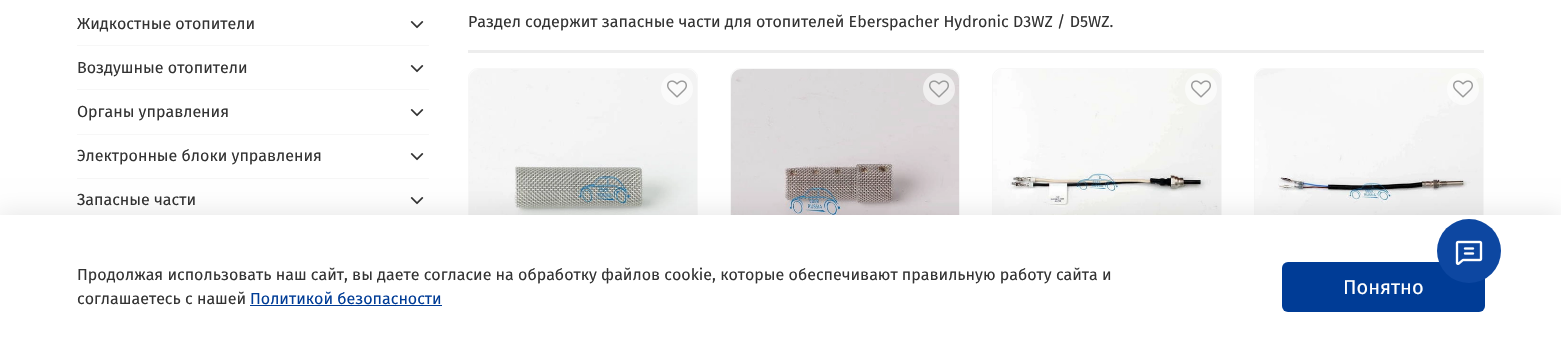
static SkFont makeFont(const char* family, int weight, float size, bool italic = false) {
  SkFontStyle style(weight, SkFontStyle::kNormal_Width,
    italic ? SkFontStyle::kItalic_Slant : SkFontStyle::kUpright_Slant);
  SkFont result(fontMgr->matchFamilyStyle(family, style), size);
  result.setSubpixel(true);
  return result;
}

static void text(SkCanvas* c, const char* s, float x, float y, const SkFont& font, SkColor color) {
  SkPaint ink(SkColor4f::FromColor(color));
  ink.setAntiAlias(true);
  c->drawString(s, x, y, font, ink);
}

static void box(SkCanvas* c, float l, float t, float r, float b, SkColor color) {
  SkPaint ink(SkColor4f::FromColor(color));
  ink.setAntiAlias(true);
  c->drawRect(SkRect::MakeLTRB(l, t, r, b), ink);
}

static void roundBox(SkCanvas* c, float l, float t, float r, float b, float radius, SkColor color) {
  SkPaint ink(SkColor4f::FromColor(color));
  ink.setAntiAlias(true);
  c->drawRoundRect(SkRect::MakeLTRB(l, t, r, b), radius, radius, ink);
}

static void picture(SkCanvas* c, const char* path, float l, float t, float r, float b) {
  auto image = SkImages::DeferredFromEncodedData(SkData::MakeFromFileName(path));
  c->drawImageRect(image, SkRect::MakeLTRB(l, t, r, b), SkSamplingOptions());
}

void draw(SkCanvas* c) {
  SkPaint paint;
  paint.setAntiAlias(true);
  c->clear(0xffffffff);
  box(c, 77, 45, 429, 46, 0xfff7f7f7);
  SkFont face1 = makeFont("Fira Sans", 400, 16);
  text(c, "Жидкостные отопители", 77, 29, face1, 0xff333333);
  picture(c, "img_01.png", 410, 21, 424, 29);
  box(c, 77, 89, 429, 90, 0xfff7f7f7);
  text(c, "Воздушные отопители", 77, 73, face1, 0xff333333);
  picture(c, "img_01.png", 410, 65, 424, 73);
  box(c, 77, 134, 429, 135, 0xfff7f7f7);
  text(c, "Органы управления", 77, 117, face1, 0xff333333);
  picture(c, "img_01.png", 410, 109, 424, 117);
  box(c, 77, 178, 429, 179, 0xfff7f7f7);
  text(c, "Электронные блоки управления", 77, 161, face1, 0xff333333);
  picture(c, "img_01.png", 410, 153, 424, 161);
  text(c, "Запасные части", 77, 205, face1, 0xff333333);
  picture(c, "img_01.png", 410, 197, 424, 205);
  text(c, "Раздел содержит запасные части для отопителей Eberspacher Hydronic D3WZ / D5WZ.", 468, 27, face1, 0xff333333);
  box(c, 468, 50, 1484, 53, 0xffededed);
  paint.setStyle(SkPaint::kStroke_Style);
  paint.setStrokeWidth(1);
  paint.setColor(0xfff7f7f7);
  c->drawRoundRect(SkRect::MakeLTRB(468.5f, 68.5f, 697.5f, 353.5f), 9.5f, 9.5f, paint);
  picture(c, "img_02.png", 469, 69, 697, 215);
  paint.setStyle(SkPaint::kFill_Style);
  paint.setColor(0x99ffffff);
  c->drawCircle(677, 89, 16, paint);
  picture(c, "img_03.png", 667, 80, 687, 98);
  paint.setStyle(SkPaint::kStroke_Style);
  paint.setColor(0xfff7f7f7);
  c->drawRoundRect(SkRect::MakeLTRB(730.5f, 68.5f, 959.5f, 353.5f), 9.5f, 9.5f, paint);
  picture(c, "img_04.png", 731, 69, 959, 215);
  paint.setStyle(SkPaint::kFill_Style);
  paint.setColor(0x99ffffff);
  c->drawCircle(939, 89, 16, paint);
  picture(c, "img_05.png", 929, 80, 949, 98);
  paint.setStyle(SkPaint::kStroke_Style);
  paint.setColor(0xfff7f7f7);
  c->drawRoundRect(SkRect::MakeLTRB(992.5f, 68.5f, 1221.5f, 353.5f), 9.5f, 9.5f, paint);
  picture(c, "img_06.png", 993, 69, 1221, 215);
  paint.setStyle(SkPaint::kFill_Style);
  paint.setColor(0x99ffffff);
  c->drawCircle(1201, 89, 16, paint);
  picture(c, "img_07.png", 1191, 80, 1211, 98);
  paint.setStyle(SkPaint::kStroke_Style);
  paint.setColor(0xfff7f7f7);
  c->drawRoundRect(SkRect::MakeLTRB(1254.5f, 68.5f, 1483.5f, 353.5f), 9.5f, 9.5f, paint);
  picture(c, "img_08.png", 1255, 69, 1483, 215);
  paint.setStyle(SkPaint::kFill_Style);
  paint.setColor(0x99ffffff);
  c->drawCircle(1463, 89, 16, paint);
  picture(c, "img_09.png", 1453, 80, 1473, 98);
  paint.setColor(0x17000000);
  paint.setMaskFilter(SkMaskFilter::MakeBlur(kNormal_SkBlurStyle, 11.5f));
  c->drawRect(SkRect::MakeLTRB(-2, 212, 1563, 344), paint);
  paint.setMaskFilter(nullptr);
  box(c, 0, 215, 1561, 343, 0xffffffff);
  text(c, "Продолжая использовать наш сайт, вы даете согласие на обработку файлов cookie, которые обеспечивают правильную работу сайта и", 77, 280, face1, 0xff333333);
  text(c, "соглашаетесь с нашей", 77, 304, face1, 0xff333333);
  text(c, "Политикой безопасности", 250, 304, face1, 0xff003c96);
  box(c, 250, 305, 442, 306, 0xff003c96);
  roundBox(c, 1282, 262, 1485, 312, 6, 0xff003c96);
  SkFont face2 = makeFont("Fira Sans", 400, 20);
  text(c, "Понятно", 1343, 294, face2, 0xffffffff);
  paint.setColor(0xff0d47a1);
  c->drawCircle(1469, 251, 32, paint);
  picture(c, "img_10.png", 1455, 240, 1483, 265);
}
